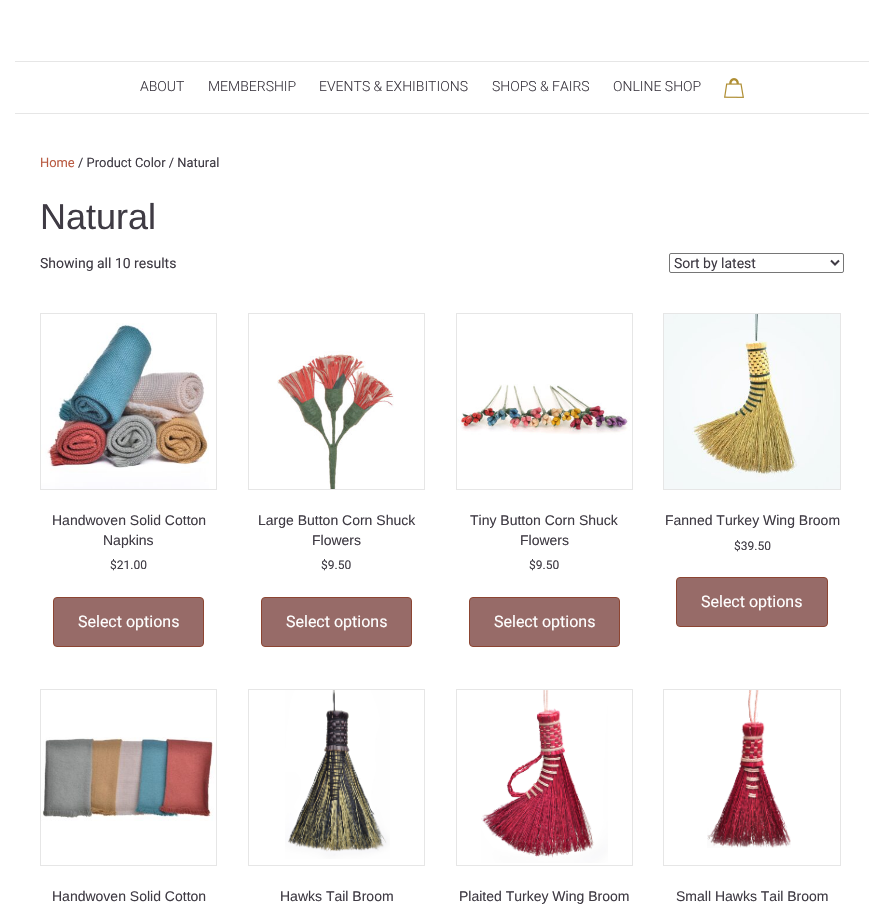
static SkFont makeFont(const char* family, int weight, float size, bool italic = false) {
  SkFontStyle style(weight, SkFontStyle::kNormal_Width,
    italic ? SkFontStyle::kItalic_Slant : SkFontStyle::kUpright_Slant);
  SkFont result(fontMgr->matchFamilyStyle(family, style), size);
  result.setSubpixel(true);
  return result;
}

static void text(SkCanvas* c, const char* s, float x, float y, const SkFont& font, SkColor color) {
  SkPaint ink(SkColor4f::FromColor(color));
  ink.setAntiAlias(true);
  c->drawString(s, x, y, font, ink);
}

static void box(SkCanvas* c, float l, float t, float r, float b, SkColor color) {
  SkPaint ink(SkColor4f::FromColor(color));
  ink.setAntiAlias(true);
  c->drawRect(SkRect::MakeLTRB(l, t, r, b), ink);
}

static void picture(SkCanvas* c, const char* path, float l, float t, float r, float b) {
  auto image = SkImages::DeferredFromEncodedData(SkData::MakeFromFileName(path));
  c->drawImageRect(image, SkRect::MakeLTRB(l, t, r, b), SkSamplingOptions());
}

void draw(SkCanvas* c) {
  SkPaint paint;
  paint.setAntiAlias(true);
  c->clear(0xffffffff);
  box(c, 15, 61, 869, 62, 0xffe6e6e6);
  box(c, 15, 113, 869, 114, 0xffe6e6e6);
  SkFont face1 = makeFont("Roboto", 300, 14);
  text(c, "ABOUT", 140, 91, face1, 0xff3f3b44);
  text(c, "MEMBERSHIP", 208, 91, face1, 0xff3f3b44);
  text(c, "EVENTS & EXHIBITIONS", 319, 91, face1, 0xff3f3b44);
  text(c, "SHOPS & FAIRS", 492, 91, face1, 0xff3f3b44);
  text(c, "ONLINE SHOP", 613, 91, face1, 0xff3f3b44);
  picture(c, "img_01.png", 724, 78, 744, 98);
  SkFont face2 = makeFont("Roboto", 400, 12.9f);
  text(c, "Home", 40, 167, face2, 0xffb95b42);
  text(c, "/ Product Color / Natural", 78, 167, face2, 0xff3f3b44);
  SkFont face3 = makeFont("Liberation Sans", 400, 36);
  text(c, "Natural", 40, 229, face3, 0xff3f3b44);
  SkFont face4 = makeFont("Roboto", 400, 14);
  text(c, "Showing all 10 results", 40, 268, face4, 0xff3f3b44);
  paint.setStyle(SkPaint::kStroke_Style);
  paint.setStrokeWidth(1);
  paint.setColor(0xff767676);
  c->drawRoundRect(SkRect::MakeLTRB(669.5f, 253.5f, 843.5f, 272.5f), 1.5f, 1.5f, paint);
  paint.setStrokeWidth(2);
  paint.setColor(0xff3f3b44);
  c->drawPath(SkPathBuilder().moveTo(831, 260.5f).lineTo(835, 264.5f).lineTo(839, 260.5f).detach(), paint);
  text(c, "Sort by latest", 674, 268, face4, 0xff3f3b44);
  paint.setStrokeWidth(1);
  paint.setColor(0xffe6e6e6);
  c->drawRect(SkRect::MakeLTRB(40.5f, 313.5f, 216.5f, 489.5f), paint);
  picture(c, "img_02.png", 41, 323, 209, 489);
  SkFont face5 = makeFont("Liberation Sans", 400, 14);
  text(c, "Handwoven Solid Cotton", 52, 525, face5, 0xff3f3b44);
  text(c, "Napkins", 103, 545, face5, 0xff3f3b44);
  SkFont face6 = makeFont("Roboto", 400, 12);
  text(c, "$21.00", 110, 569, face6, 0xff3f3b44);
  paint.setStyle(SkPaint::kFill_Style);
  paint.setColor(0xff976b68);
  c->drawRoundRect(SkRect::MakeLTRB(53.5f, 597.5f, 203.5f, 646.5f), 3.5f, 3.5f, paint);
  paint.setStyle(SkPaint::kStroke_Style);
  paint.setColor(0xff8c4532);
  c->drawRoundRect(SkRect::MakeLTRB(53.5f, 597.5f, 203.5f, 646.5f), 3.5f, 3.5f, paint);
  SkFont face7 = makeFont("Roboto", 400, 16);
  text(c, "Select options", 78, 627, face7, 0xffffffff);
  paint.setColor(0xffe6e6e6);
  c->drawRect(SkRect::MakeLTRB(248.5f, 313.5f, 424.5f, 489.5f), paint);
  picture(c, "img_03.png", 277, 351, 394, 489);
  text(c, "Large Button Corn Shuck", 258, 525, face5, 0xff3f3b44);
  text(c, "Flowers", 312, 545, face5, 0xff3f3b44);
  text(c, "$9.50", 321, 569, face6, 0xff3f3b44);
  paint.setStyle(SkPaint::kFill_Style);
  paint.setColor(0xff976b68);
  c->drawRoundRect(SkRect::MakeLTRB(261.5f, 597.5f, 411.5f, 646.5f), 3.5f, 3.5f, paint);
  paint.setStyle(SkPaint::kStroke_Style);
  paint.setColor(0xff8c4532);
  c->drawRoundRect(SkRect::MakeLTRB(261.5f, 597.5f, 411.5f, 646.5f), 3.5f, 3.5f, paint);
  text(c, "Select options", 286, 627, face7, 0xffffffff);
  paint.setColor(0xffe6e6e6);
  c->drawRect(SkRect::MakeLTRB(456.5f, 313.5f, 632.5f, 489.5f), paint);
  picture(c, "img_04.png", 457, 384, 630, 435);
  text(c, "Tiny Button Corn Shuck", 470, 525, face5, 0xff3f3b44);
  text(c, "Flowers", 520, 545, face5, 0xff3f3b44);
  text(c, "$9.50", 529, 569, face6, 0xff3f3b44);
  paint.setStyle(SkPaint::kFill_Style);
  paint.setColor(0xff976b68);
  c->drawRoundRect(SkRect::MakeLTRB(469.5f, 597.5f, 619.5f, 646.5f), 3.5f, 3.5f, paint);
  paint.setStyle(SkPaint::kStroke_Style);
  paint.setColor(0xff8c4532);
  c->drawRoundRect(SkRect::MakeLTRB(469.5f, 597.5f, 619.5f, 646.5f), 3.5f, 3.5f, paint);
  text(c, "Select options", 494, 627, face7, 0xffffffff);
  paint.setColor(0xffe6e6e6);
  c->drawRect(SkRect::MakeLTRB(663.5f, 313.5f, 840.5f, 489.5f), paint);
  picture(c, "img_05.png", 664, 314, 840, 489);
  text(c, "Fanned Turkey Wing Broom", 665, 525, face5, 0xff3f3b44);
  text(c, "$39.50", 734, 550, face6, 0xff3f3b44);
  paint.setStyle(SkPaint::kFill_Style);
  paint.setColor(0xff976b68);
  c->drawRoundRect(SkRect::MakeLTRB(676.5f, 577.5f, 827.5f, 626.5f), 3.5f, 3.5f, paint);
  paint.setStyle(SkPaint::kStroke_Style);
  paint.setColor(0xff8c4532);
  c->drawRoundRect(SkRect::MakeLTRB(676.5f, 577.5f, 827.5f, 626.5f), 3.5f, 3.5f, paint);
  text(c, "Select options", 701, 607, face7, 0xffffffff);
  paint.setColor(0xffe6e6e6);
  c->drawRect(SkRect::MakeLTRB(40.5f, 689.5f, 216.5f, 865.5f), paint);
  picture(c, "img_06.png", 41, 737, 216, 821);
  text(c, "Handwoven Solid Cotton", 52, 901, face5, 0xff3f3b44);
  c->drawRect(SkRect::MakeLTRB(248.5f, 689.5f, 424.5f, 865.5f), paint);
  picture(c, "img_07.png", 285, 690, 390, 859);
  text(c, "Hawks Tail Broom", 280, 901, face5, 0xff3f3b44);
  c->drawRect(SkRect::MakeLTRB(456.5f, 689.5f, 632.5f, 865.5f), paint);
  picture(c, "img_08.png", 481, 690, 608, 863);
  text(c, "Plaited Turkey Wing Broom", 459, 901, face5, 0xff3f3b44);
  c->drawRect(SkRect::MakeLTRB(663.5f, 689.5f, 840.5f, 865.5f), paint);
  picture(c, "img_09.png", 707, 690, 791, 848);
  text(c, "Small Hawks Tail Broom", 676, 901, face5, 0xff3f3b44);
}
